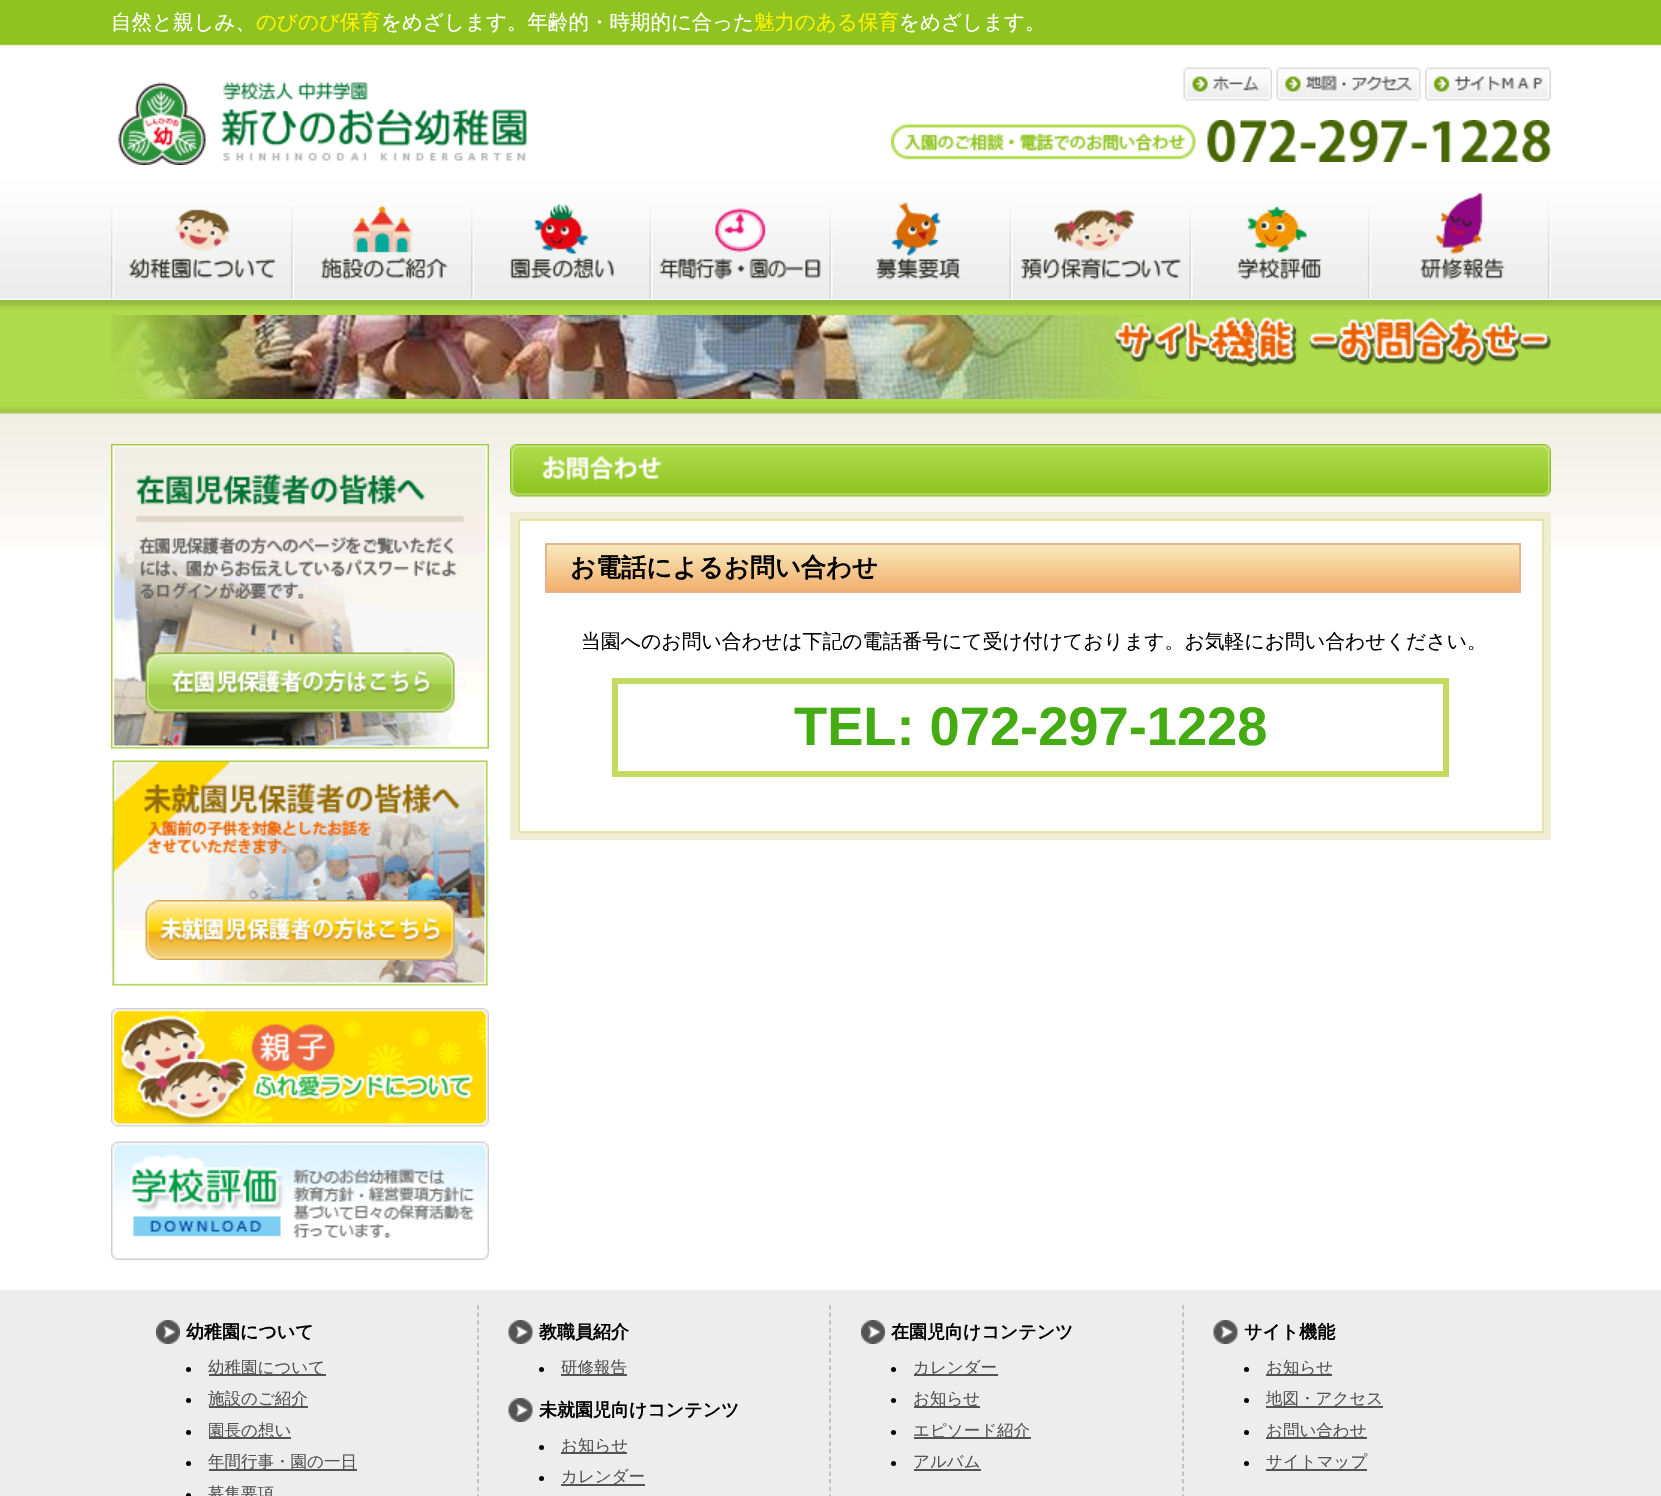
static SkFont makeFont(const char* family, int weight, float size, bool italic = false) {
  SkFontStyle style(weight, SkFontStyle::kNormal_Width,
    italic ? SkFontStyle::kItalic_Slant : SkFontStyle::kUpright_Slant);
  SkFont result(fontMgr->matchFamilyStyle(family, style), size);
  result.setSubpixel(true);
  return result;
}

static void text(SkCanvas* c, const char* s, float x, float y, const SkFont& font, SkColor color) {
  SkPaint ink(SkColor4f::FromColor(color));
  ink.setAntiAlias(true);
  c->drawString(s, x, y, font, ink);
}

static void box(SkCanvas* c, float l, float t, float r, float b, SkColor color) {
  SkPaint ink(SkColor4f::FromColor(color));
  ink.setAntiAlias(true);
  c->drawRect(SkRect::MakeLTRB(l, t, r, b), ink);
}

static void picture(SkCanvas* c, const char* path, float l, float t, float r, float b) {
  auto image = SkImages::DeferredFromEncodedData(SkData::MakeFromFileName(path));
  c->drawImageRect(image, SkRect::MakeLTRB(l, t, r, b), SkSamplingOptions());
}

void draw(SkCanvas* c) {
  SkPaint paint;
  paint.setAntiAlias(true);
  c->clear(0xffffffff);
  picture(c, "img_01.png", 0, 0, 1661, 299);
  SkFont face1 = makeFont("WenQuanYi Zen Hei", 500, 20.5f);
  text(c, "自然と親しみ、", 111, 29, face1, 0xffffffff);
  text(c, "のびのび保育", 256, 29, face1, 0xfffff100);
  text(c, "をめざします。年齢的・時期的に合った", 381, 29, face1, 0xffffffff);
  text(c, "魅力のある保育", 754, 29, face1, 0xfffff100);
  text(c, "をめざします。", 899, 29, face1, 0xffffffff);
  picture(c, "img_02.png", 118, 82, 527, 165);
  picture(c, "img_03.png", 1183, 67, 1272, 101);
  picture(c, "img_04.png", 1276, 67, 1421, 101);
  picture(c, "img_05.png", 1425, 67, 1551, 101);
  picture(c, "img_06.png", 891, 120, 1551, 162);
  picture(c, "img_07.png", 111, 207, 291, 299);
  picture(c, "img_08.png", 291, 205, 471, 299);
  picture(c, "img_09.png", 471, 203, 651, 299);
  picture(c, "img_10.png", 651, 207, 831, 299);
  picture(c, "img_11.png", 831, 202, 1011, 299);
  picture(c, "img_12.png", 1011, 207, 1191, 299);
  picture(c, "img_13.png", 1191, 205, 1371, 299);
  picture(c, "img_14.png", 1371, 191, 1551, 299);
  picture(c, "img_15.png", 0, 300, 1661, 548);
  picture(c, "img_16.png", 111, 315, 1551, 399);
  picture(c, "img_17.png", 111, 444, 489, 749);
  picture(c, "img_18.png", 145, 652, 455, 713);
  picture(c, "img_19.png", 111, 760, 489, 986);
  picture(c, "img_20.png", 145, 900, 455, 960);
  picture(c, "img_21.png", 111, 1008, 489, 1127);
  picture(c, "img_22.png", 111, 1141, 489, 1260);
  picture(c, "img_23.png", 510, 444, 1551, 497);
  box(c, 510, 512, 1551, 840, 0xffefeed3);
  paint.setColor(0xffffffff);
  c->drawRect(SkRect::MakeLTRB(519, 520, 1543, 832), paint);
  paint.setStyle(SkPaint::kStroke_Style);
  paint.setStrokeWidth(2);
  paint.setColor(0xffe6e3a6);
  c->drawRect(SkRect::MakeLTRB(519, 520, 1543, 832), paint);
  paint.setStyle(SkPaint::kFill_Style);
  {
    const SkColor colors[] = {0xfff7ebbe, 0xfff2af6d};
    const float stops[] = {0, 1};
    const SkPoint ends[] = {{1033, 544}, {1033, 591}};
    paint.setShader(SkGradientShader::MakeLinear(ends, colors, stops, 2, SkTileMode::kClamp));
    paint.setAlpha(255);
  }
  c->drawRect(SkRect::MakeLTRB(547, 545, 1519, 591), paint);
  paint.setStyle(SkPaint::kStroke_Style);
  paint.setShader(nullptr);
  paint.setColor(0xffe7b38e);
  c->drawRect(SkRect::MakeLTRB(546, 544, 1520, 592), paint);
  SkFont face2 = makeFont("WenQuanYi Zen Hei", 700, 25.25f);
  text(c, "お電話によるお問い合わせ", 570, 576, face2, 0xff000000);
  SkFont face3 = makeFont("WenQuanYi Zen Hei", 500, 19.85f);
  text(c, "当園へのお問い合わせは下記の電話番号にて受け付けております。お気軽にお問い合わせください。", 581, 648, face3, 0xff000000);
  paint.setStrokeWidth(6);
  paint.setColor(0xffc4db62);
  c->drawRect(SkRect::MakeLTRB(615, 681, 1446, 774), paint);
  SkFont face4 = makeFont("Liberation Sans", 700, 54.25f);
  text(c, "TEL: 072-297-1228", 794, 745, face4, 0xff44ab12);
  box(c, 0, 1290, 1661, 1496, 0xffeeeded);
  paint.setStrokeWidth(1.5f);
  paint.setColor(0xffb5b5b5);
  paint.setPathEffect(SkDashPathEffect::Make({{4.5f, 3.07f}}, 0));
  c->drawPath(SkPathBuilder().moveTo(478, 1305).lineTo(478, 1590).detach(), paint);
  paint.setPathEffect(nullptr);
  picture(c, "img_24.png", 156, 1320, 180, 1344);
  SkFont face5 = makeFont("WenQuanYi Zen Hei", 700, 18);
  text(c, "幼稚園について", 186, 1338, face5, 0xff000000);
  paint.setStyle(SkPaint::kFill_Style);
  paint.setColor(0xff000000);
  c->drawCircle(188.5f, 1369.5f, 2.5f, paint);
  box(c, 209, 1374, 326, 1376, 0xff535353);
  SkFont face6 = makeFont("WenQuanYi Zen Hei", 500, 16.5f);
  text(c, "幼稚園について", 208, 1373, face6, 0xff535353);
  c->drawCircle(188.5f, 1400.5f, 2.5f, paint);
  box(c, 209, 1406, 308, 1408, 0xff535353);
  text(c, "施設のご紹介", 208, 1404, face6, 0xff535353);
  c->drawCircle(188.5f, 1432.5f, 2.5f, paint);
  box(c, 209, 1437, 291, 1439, 0xff535353);
  text(c, "園長の想い", 208, 1436, face6, 0xff535353);
  c->drawCircle(188.5f, 1463.5f, 2.5f, paint);
  box(c, 209, 1469, 357, 1471, 0xff535353);
  text(c, "年間行事・園の一日", 208, 1467, face6, 0xff535353);
  c->drawCircle(188.5f, 1495.5f, 2.5f, paint);
  text(c, "募集要項", 208, 1499, face6, 0xff535353);
  paint.setStyle(SkPaint::kStroke_Style);
  paint.setColor(0xffb5b5b5);
  paint.setPathEffect(SkDashPathEffect::Make({{4.5f, 3.07f}}, 0));
  c->drawPath(SkPathBuilder().moveTo(830, 1305).lineTo(830, 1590).detach(), paint);
  paint.setPathEffect(nullptr);
  picture(c, "img_25.png", 508, 1320, 533, 1344);
  text(c, "教職員紹介", 539, 1338, face5, 0xff000000);
  paint.setStyle(SkPaint::kFill_Style);
  paint.setColor(0xff000000);
  c->drawCircle(541.5f, 1369.5f, 2.5f, paint);
  box(c, 561, 1374, 627, 1376, 0xff535353);
  text(c, "研修報告", 561, 1373, face6, 0xff535353);
  picture(c, "img_25.png", 508, 1398, 533, 1422);
  text(c, "未就園児向けコンテンツ", 539, 1416, face5, 0xff000000);
  c->drawCircle(541.5f, 1447.5f, 2.5f, paint);
  box(c, 561, 1452, 627, 1454, 0xff535353);
  text(c, "お知らせ", 561, 1451, face6, 0xff535353);
  c->drawCircle(541.5f, 1478.5f, 2.5f, paint);
  box(c, 561, 1484, 645, 1486, 0xff535353);
  text(c, "カレンダー", 561, 1482, face6, 0xff535353);
  paint.setStyle(SkPaint::kStroke_Style);
  paint.setColor(0xffb5b5b5);
  paint.setPathEffect(SkDashPathEffect::Make({{4.5f, 3.07f}}, 0));
  c->drawPath(SkPathBuilder().moveTo(1183, 1305).lineTo(1183, 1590).detach(), paint);
  paint.setPathEffect(nullptr);
  picture(c, "img_24.png", 861, 1320, 885, 1344);
  text(c, "在園児向けコンテンツ", 891, 1338, face5, 0xff000000);
  paint.setStyle(SkPaint::kFill_Style);
  paint.setColor(0xff000000);
  c->drawCircle(893.5f, 1369.5f, 2.5f, paint);
  box(c, 914, 1374, 998, 1376, 0xff535353);
  text(c, "カレンダー", 913, 1373, face6, 0xff535353);
  c->drawCircle(893.5f, 1400.5f, 2.5f, paint);
  box(c, 914, 1406, 980, 1408, 0xff535353);
  text(c, "お知らせ", 913, 1404, face6, 0xff535353);
  c->drawCircle(893.5f, 1432.5f, 2.5f, paint);
  box(c, 914, 1437, 1031, 1439, 0xff535353);
  text(c, "エピソード紹介", 913, 1436, face6, 0xff535353);
  c->drawCircle(893.5f, 1463.5f, 2.5f, paint);
  text(c, "アルバム", 913, 1467, face6, 0xff535353);
  box(c, 914, 1469, 981, 1471, 0xff535353);
  picture(c, "img_25.png", 1213, 1320, 1238, 1344);
  text(c, "サイト機能", 1244, 1338, face5, 0xff000000);
  c->drawCircle(1246.5f, 1369.5f, 2.5f, paint);
  box(c, 1266, 1374, 1332, 1376, 0xff535353);
  text(c, "お知らせ", 1266, 1373, face6, 0xff535353);
  c->drawCircle(1246.5f, 1400.5f, 2.5f, paint);
  box(c, 1266, 1406, 1383, 1408, 0xff535353);
  text(c, "地図・アクセス", 1266, 1404, face6, 0xff535353);
  c->drawCircle(1246.5f, 1432.5f, 2.5f, paint);
  box(c, 1266, 1437, 1367, 1439, 0xff535353);
  text(c, "お問い合わせ", 1266, 1436, face6, 0xff535353);
  c->drawCircle(1246.5f, 1463.5f, 2.5f, paint);
  box(c, 1266, 1469, 1367, 1471, 0xff535353);
  text(c, "サイトマップ", 1266, 1467, face6, 0xff535353);
}
